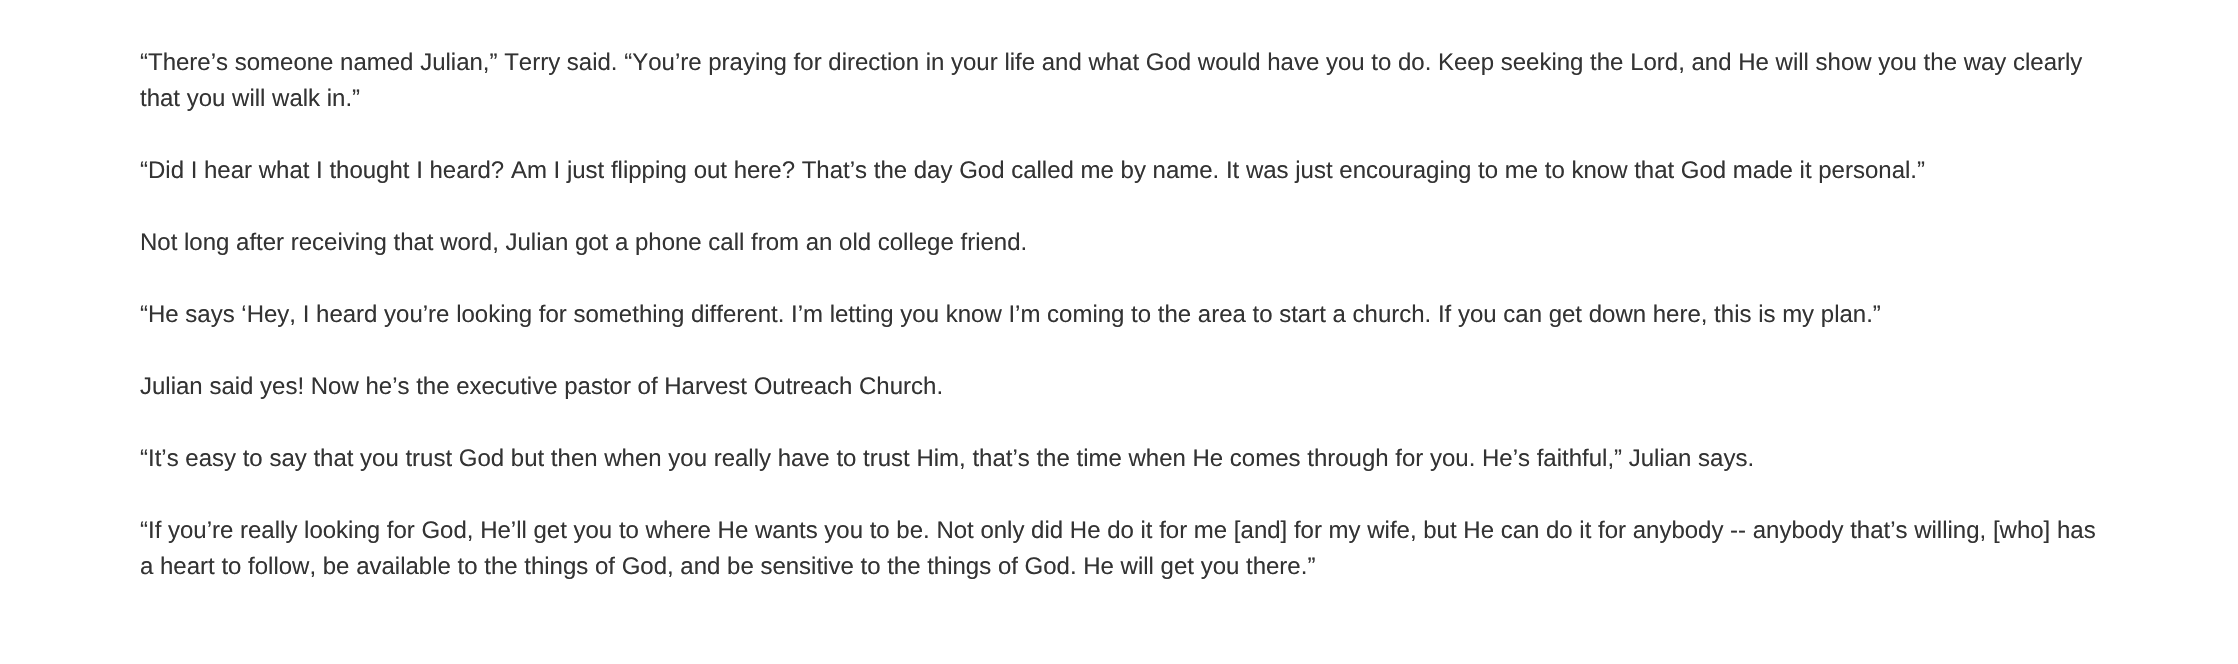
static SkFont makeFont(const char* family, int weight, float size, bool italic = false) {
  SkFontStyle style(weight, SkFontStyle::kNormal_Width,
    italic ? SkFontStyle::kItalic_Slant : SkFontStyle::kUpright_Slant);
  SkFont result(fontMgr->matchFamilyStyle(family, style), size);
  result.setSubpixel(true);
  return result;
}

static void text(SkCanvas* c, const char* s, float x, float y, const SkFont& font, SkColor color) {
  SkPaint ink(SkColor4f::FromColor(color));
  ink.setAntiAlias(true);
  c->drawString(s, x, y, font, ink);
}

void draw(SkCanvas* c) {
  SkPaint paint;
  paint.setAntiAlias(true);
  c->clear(0xffffffff);
  SkFont face1 = makeFont("Liberation Sans", 400, 24);
  text(c, "“There’s someone named Julian,” Terry said. “You’re praying for direction in your life and what God would have you to do. Keep seeking the Lord, and He will show you the way clearly", 140, 70, face1, 0xff333333);
  text(c, "that you will walk in.”", 140, 106, face1, 0xff333333);
  text(c, "“Did I hear what I thought I heard? Am I just flipping out here? That’s the day God called me by name. It was just encouraging to me to know that God made it personal.”", 140, 178, face1, 0xff333333);
  text(c, "Not long after receiving that word, Julian got a phone call from an old college friend.", 140, 250, face1, 0xff333333);
  text(c, "“He says ‘Hey, I heard you’re looking for something different. I’m letting you know I’m coming to the area to start a church. If you can get down here, this is my plan.”", 140, 322, face1, 0xff333333);
  text(c, "Julian said yes! Now he’s the executive pastor of Harvest Outreach Church.", 140, 394, face1, 0xff333333);
  text(c, "“It’s easy to say that you trust God but then when you really have to trust Him, that’s the time when He comes through for you. He’s faithful,” Julian says.", 140, 466, face1, 0xff333333);
  text(c, "“If you’re really looking for God, He’ll get you to where He wants you to be. Not only did He do it for me [and] for my wife, but He can do it for anybody -- anybody that’s willing, [who] has", 140, 538, face1, 0xff333333);
  text(c, "a heart to follow, be available to the things of God, and be sensitive to the things of God. He will get you there.”", 140, 574, face1, 0xff333333);
}
